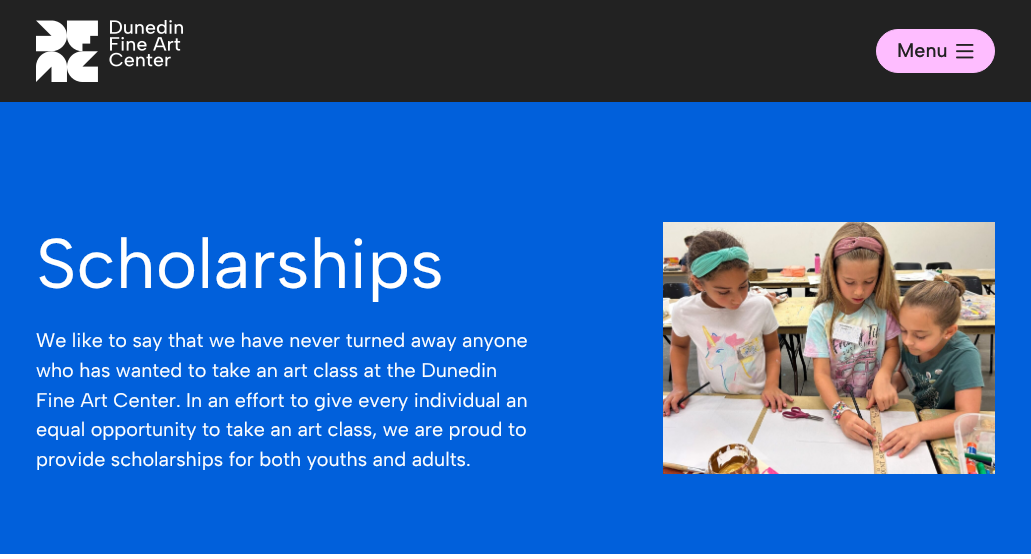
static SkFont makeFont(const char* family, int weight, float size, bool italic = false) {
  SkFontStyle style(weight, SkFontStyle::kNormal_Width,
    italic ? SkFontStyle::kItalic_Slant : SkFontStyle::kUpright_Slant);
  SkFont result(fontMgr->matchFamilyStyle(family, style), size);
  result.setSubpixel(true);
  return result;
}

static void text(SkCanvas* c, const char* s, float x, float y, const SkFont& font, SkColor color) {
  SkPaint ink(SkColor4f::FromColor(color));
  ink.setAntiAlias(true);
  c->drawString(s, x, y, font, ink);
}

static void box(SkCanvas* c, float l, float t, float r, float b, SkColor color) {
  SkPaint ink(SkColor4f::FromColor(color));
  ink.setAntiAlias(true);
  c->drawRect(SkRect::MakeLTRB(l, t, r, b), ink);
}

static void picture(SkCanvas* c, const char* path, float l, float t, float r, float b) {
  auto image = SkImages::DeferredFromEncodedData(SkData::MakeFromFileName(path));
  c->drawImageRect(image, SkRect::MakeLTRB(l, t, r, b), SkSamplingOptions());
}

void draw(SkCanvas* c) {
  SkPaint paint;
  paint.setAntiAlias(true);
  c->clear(0xffffffff);
  box(c, 0, 0, 1031, 102, 0xff222222);
  picture(c, "img_01.png", 36, 20, 183, 82);
  paint.setColor(0xfffebdff);
  c->drawRoundRect(SkRect::MakeLTRB(876.5f, 29.5f, 994.5f, 72.5f), 21.5f, 21.5f, paint);
  paint.setStyle(SkPaint::kStroke_Style);
  paint.setStrokeWidth(1);
  c->drawRoundRect(SkRect::MakeLTRB(876.5f, 29.5f, 994.5f, 72.5f), 21.5f, 21.5f, paint);
  SkFont face1 = makeFont("Albert Sans", 500, 19.75f);
  text(c, "Menu", 897, 57, face1, 0xff222222);
  picture(c, "img_02.png", 956, 44, 974, 59);
  box(c, 0, 102, 1031, 554, 0xff0160db);
  SkFont face2 = makeFont("Albert Sans", 400, 70.5f);
  text(c, "Scholarships", 36, 288, face2, 0xffffffff);
  SkFont face3 = makeFont("Albert Sans", 400, 19.75f);
  text(c, "We like to say that we have never turned away anyone", 36, 347, face3, 0xffffffff);
  text(c, "who has wanted to take an art class at the Dunedin", 36, 377, face3, 0xffffffff);
  text(c, "Fine Art Center. In an effort to give every individual an", 36, 407, face3, 0xffffffff);
  text(c, "equal opportunity to take an art class, we are proud to", 36, 436, face3, 0xffffffff);
  text(c, "provide scholarships for both youths and adults.", 36, 466, face3, 0xffffffff);
  picture(c, "img_03.png", 663, 222, 995, 474);
}
